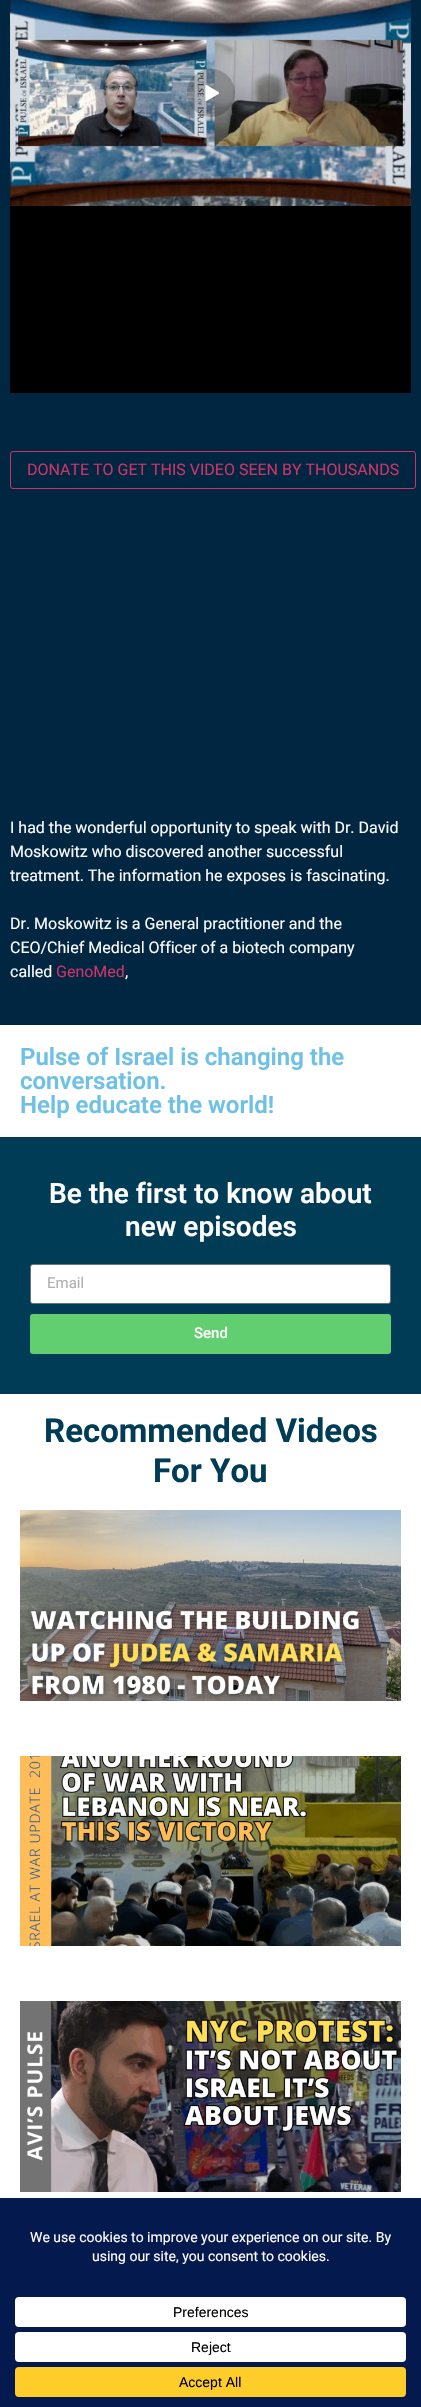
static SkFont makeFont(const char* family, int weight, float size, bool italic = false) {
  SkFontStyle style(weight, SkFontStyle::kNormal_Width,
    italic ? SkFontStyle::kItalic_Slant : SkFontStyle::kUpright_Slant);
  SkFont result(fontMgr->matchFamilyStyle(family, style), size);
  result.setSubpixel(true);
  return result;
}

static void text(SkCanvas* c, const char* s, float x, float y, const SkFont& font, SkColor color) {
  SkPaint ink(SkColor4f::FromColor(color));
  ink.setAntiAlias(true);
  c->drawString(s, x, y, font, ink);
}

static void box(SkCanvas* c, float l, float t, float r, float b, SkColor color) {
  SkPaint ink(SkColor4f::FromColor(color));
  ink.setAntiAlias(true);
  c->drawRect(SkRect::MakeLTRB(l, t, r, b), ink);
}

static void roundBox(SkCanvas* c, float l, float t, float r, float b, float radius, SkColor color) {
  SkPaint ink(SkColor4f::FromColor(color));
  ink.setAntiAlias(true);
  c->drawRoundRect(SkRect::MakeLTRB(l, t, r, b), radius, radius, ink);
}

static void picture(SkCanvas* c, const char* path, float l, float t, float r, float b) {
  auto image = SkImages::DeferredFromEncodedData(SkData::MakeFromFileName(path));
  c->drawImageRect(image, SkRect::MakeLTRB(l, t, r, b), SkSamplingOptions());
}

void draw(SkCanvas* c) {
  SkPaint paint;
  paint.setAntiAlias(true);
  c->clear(0xff002642);
  picture(c, "img_01.png", 10, 0, 411, 393);
  paint.setStyle(SkPaint::kStroke_Style);
  paint.setStrokeWidth(1);
  paint.setColor(0xffcc3366);
  c->drawRoundRect(SkRect::MakeLTRB(10.5f, 451.5f, 415.5f, 488.5f), 2.5f, 2.5f, paint);
  SkFont face1 = makeFont("Roboto", 400, 16);
  text(c, "DONATE TO GET THIS VIDEO SEEN BY THOUSANDS", 27, 475, face1, 0xffcc3366);
  text(c, "I had the wonderful opportunity to speak with Dr. David", 10, 833, face1, 0xfffffcfc);
  text(c, "Moskowitz who discovered another successful", 10, 857, face1, 0xfffffcfc);
  text(c, "treatment. The information he exposes is fascinating.", 10, 881, face1, 0xfffffcfc);
  text(c, "Dr. Moskowitz is a General practitioner and the", 10, 929, face1, 0xfffffcfc);
  text(c, "CEO/Chief Medical Officer of a biotech company", 10, 953, face1, 0xfffffcfc);
  text(c, "called", 10, 977, face1, 0xfffffcfc);
  text(c, "GenoMed", 56, 977, face1, 0xffcc3366);
  text(c, ",", 125, 977, face1, 0xfffffcfc);
  box(c, 0, 1025, 421, 1137, 0xffffffff);
  SkFont face2 = makeFont("Roboto", 600, 24);
  text(c, "Pulse of Israel is changing the", 20, 1065, face2, 0xff6ec1e4);
  text(c, "conversation.", 20, 1089, face2, 0xff6ec1e4);
  text(c, "Help educate the world!", 20, 1113, face2, 0xff6ec1e4);
  box(c, 0, 1137, 421, 1394, 0xff003c56);
  SkFont face3 = makeFont("Roboto", 600, 28);
  text(c, "Be the first to know about", 49, 1203, face3, 0xfffffcfc);
  text(c, "new episodes", 125, 1236, face3, 0xfffffcfc);
  paint.setStyle(SkPaint::kFill_Style);
  paint.setColor(0xffffffff);
  c->drawRoundRect(SkRect::MakeLTRB(30.5f, 1264.5f, 390.5f, 1303.5f), 2.5f, 2.5f, paint);
  paint.setStyle(SkPaint::kStroke_Style);
  paint.setColor(0xff69727d);
  c->drawRoundRect(SkRect::MakeLTRB(30.5f, 1264.5f, 390.5f, 1303.5f), 2.5f, 2.5f, paint);
  SkFont face4 = makeFont("Roboto", 400, 15);
  text(c, "Email", 47, 1288, face4, 0xffafafaf);
  roundBox(c, 30, 1314, 391, 1354, 3, 0xff61ce70);
  SkFont face5 = makeFont("Roboto", 500, 15);
  text(c, "Send", 194, 1338, face5, 0xfffffcfc);
  box(c, 0, 1394, 421, 2198, 0xffffffff);
  SkFont face6 = makeFont("Roboto", 700, 33);
  text(c, "Recommended Videos", 44, 1442, face6, 0xff003c56);
  text(c, "For You", 153, 1482, face6, 0xff003c56);
  picture(c, "img_02.png", 20, 1510, 401, 1701);
  picture(c, "img_03.png", 20, 1756, 401, 1946);
  picture(c, "img_04.png", 20, 2001, 401, 2192);
  box(c, 0, 2198, 421, 2407, 0xff04194e);
  SkFont face7 = makeFont("Roboto", 400, 14);
  text(c, "We use cookies to improve your experience on our site. By", 30, 2242, face7, 0xfffffcfc);
  text(c, "using our site, you consent to cookies.", 92, 2261, face7, 0xfffffcfc);
  roundBox(c, 15, 2297, 406, 2327, 4, 0xffffffff);
  SkFont face8 = makeFont("Liberation Sans", 400, 14);
  text(c, "Preferences", 173, 2317, face8, 0xff000000);
  roundBox(c, 15, 2332, 406, 2362, 4, 0xffffffff);
  text(c, "Reject", 191, 2352, face8, 0xff000000);
  roundBox(c, 15, 2367, 406, 2397, 4, 0xffffcd2a);
  text(c, "Accept All", 179, 2387, face8, 0xff000000);
}
